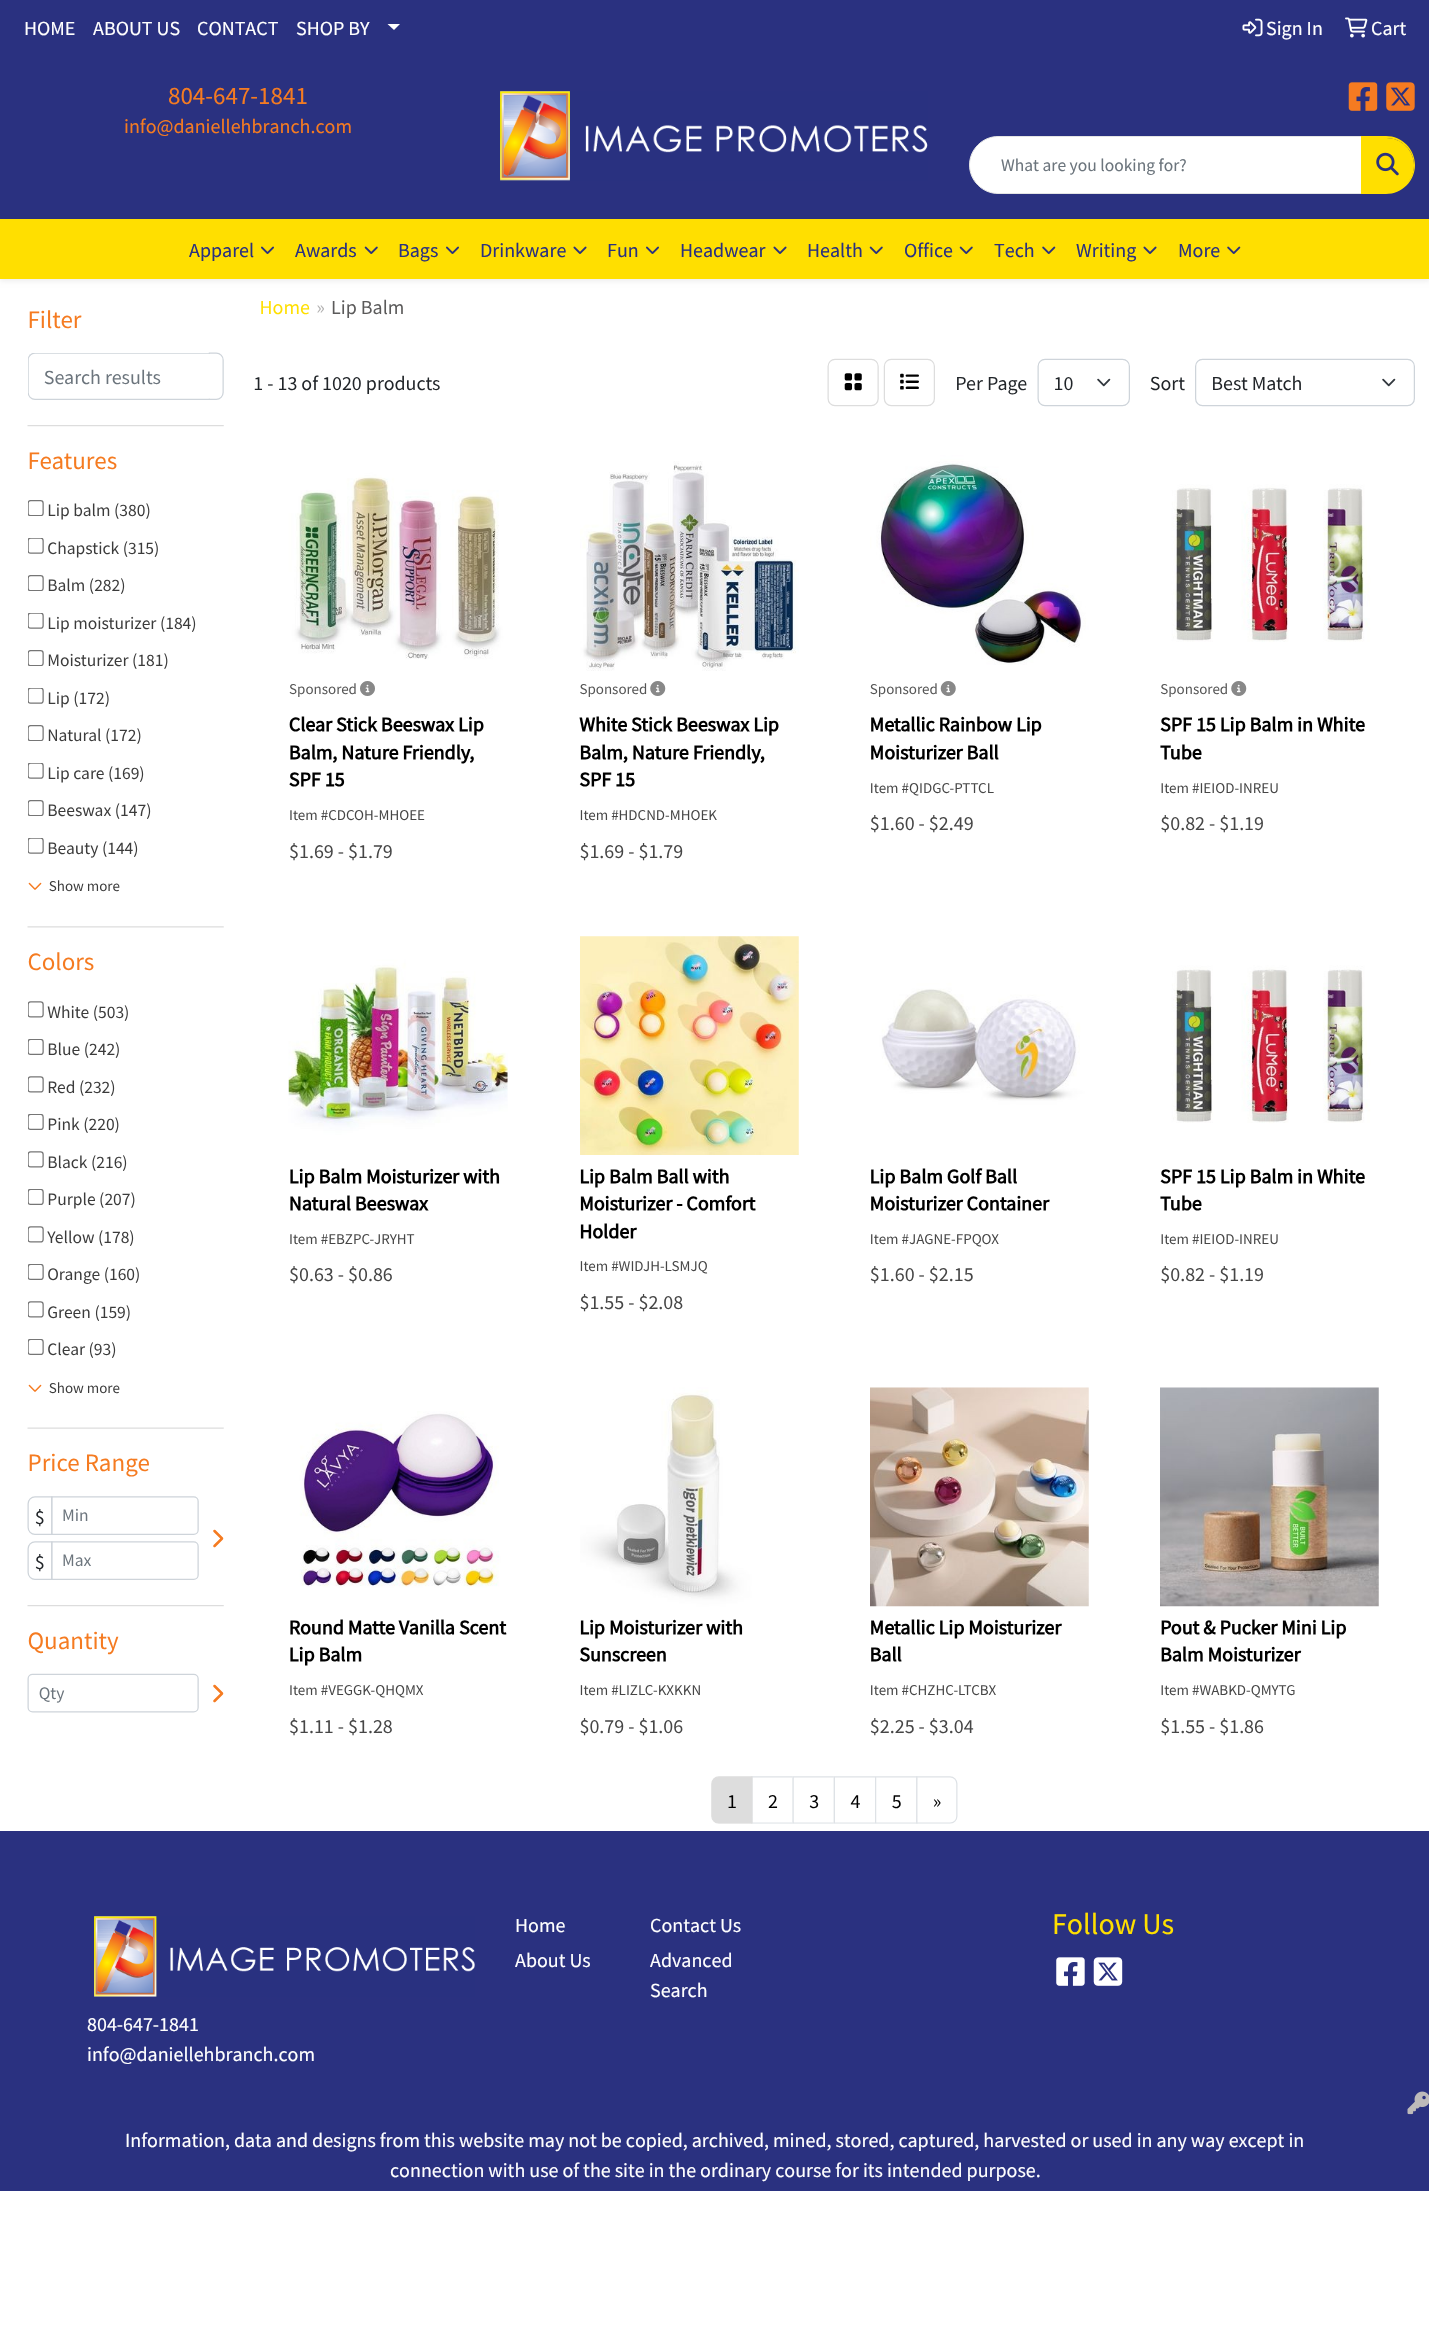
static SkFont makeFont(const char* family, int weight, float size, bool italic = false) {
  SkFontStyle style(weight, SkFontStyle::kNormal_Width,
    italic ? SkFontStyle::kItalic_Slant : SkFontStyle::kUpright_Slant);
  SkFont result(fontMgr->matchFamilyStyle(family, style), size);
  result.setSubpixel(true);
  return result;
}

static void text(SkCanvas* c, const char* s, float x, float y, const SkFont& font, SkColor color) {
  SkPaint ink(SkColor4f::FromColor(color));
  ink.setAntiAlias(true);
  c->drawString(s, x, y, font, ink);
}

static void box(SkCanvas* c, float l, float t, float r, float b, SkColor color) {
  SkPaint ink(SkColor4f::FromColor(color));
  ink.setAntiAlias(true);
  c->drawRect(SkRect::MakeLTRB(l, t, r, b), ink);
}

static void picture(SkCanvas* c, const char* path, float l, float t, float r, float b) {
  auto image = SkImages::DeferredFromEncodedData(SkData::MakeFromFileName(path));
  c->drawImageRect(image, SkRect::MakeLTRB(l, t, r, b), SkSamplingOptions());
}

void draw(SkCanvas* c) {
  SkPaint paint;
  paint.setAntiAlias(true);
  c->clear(0xffffffff);
  box(c, 0, 0, 1429, 219, 0xff2a3180);
  SkFont face1 = makeFont("Source Sans Pro", 400, 20);
  text(c, "HOME", 24, 35, face1, 0xffffffff);
  text(c, "ABOUT US", 93, 35, face1, 0xffffffff);
  text(c, "CONTACT", 197, 35, face1, 0xffffffff);
  text(c, "SHOP BY", 296, 35, face1, 0xffffffff);
  paint.setColor(0xffffffff);
  c->drawPath(SkPathBuilder().moveTo(387.5f, 24).lineTo(400, 24).lineTo(394, 30).close().detach(), paint);
  picture(c, "img_01.png", 1242, 18, 1263, 37);
  text(c, "Sign In", 1266, 35, face1, 0xffffffff);
  picture(c, "img_02.png", 1345, 17, 1368, 38);
  text(c, "Cart", 1371, 35, face1, 0xffffffff);
  SkFont face2 = makeFont("Source Sans Pro", 400, 25);
  text(c, "804-647-1841", 168, 104, face2, 0xfff57b21);
  text(c, "info@daniellehbranch.com", 124, 133, face1, 0xfff57b21);
  picture(c, "img_03.png", 500, 91, 928, 181);
  picture(c, "img_04.png", 1348, 82, 1378, 111);
  picture(c, "img_05.png", 1386, 82, 1415, 111);
  c->drawPath(SkPathBuilder().moveTo(998, 136.5f).lineTo(1362.5f, 136.5f).lineTo(1362.5f, 193.5f).lineTo(998, 193.5f).cubicTo(982.5f, 193.5f, 969.5f, 180.5f, 969.5f, 165).cubicTo(969.5f, 149.5f, 982.5f, 136.5f, 998, 136.5f).close().detach(), paint);
  paint.setStyle(SkPaint::kStroke_Style);
  paint.setStrokeWidth(1);
  paint.setColor(0xffe4e4e4);
  c->drawPath(SkPathBuilder().moveTo(998, 136.5f).lineTo(1362.5f, 136.5f).lineTo(1362.5f, 193.5f).lineTo(998, 193.5f).cubicTo(982.5f, 193.5f, 969.5f, 180.5f, 969.5f, 165).cubicTo(969.5f, 149.5f, 982.5f, 136.5f, 998, 136.5f).close().detach(), paint);
  SkFont face3 = makeFont("Source Sans Pro", 400, 17.5f);
  text(c, "What are you looking for?", 1001, 171, face3, 0xff6c757d);
  paint.setStyle(SkPaint::kFill_Style);
  paint.setColor(0xffffdf00);
  c->drawPath(SkPathBuilder().moveTo(1361, 138).lineTo(1386.5f, 138).cubicTo(1401.5f, 138, 1414, 150.5f, 1414, 165.5f).cubicTo(1414, 180.5f, 1401.5f, 193, 1386.5f, 193).lineTo(1361, 193).close().detach(), paint);
  c->drawPath(SkPathBuilder(SkPathFillType::kEvenOdd).moveTo(1361, 136).lineTo(1386, 136).cubicTo(1402, 136, 1415, 149, 1415, 165).cubicTo(1415, 181, 1402, 194, 1386, 194).lineTo(1361, 194).close().moveTo(1361, 138).lineTo(1386, 138).cubicTo(1401, 138, 1414, 150, 1414, 165).cubicTo(1414, 180, 1401, 192, 1386, 192).lineTo(1361, 192).close().detach(), paint);
  picture(c, "img_06.png", 1376, 152, 1399, 176);
  paint.setColor(0x12000000);
  paint.setMaskFilter(SkMaskFilter::MakeBlur(kNormal_SkBlurStyle, 2.5f));
  c->drawRect(SkRect::MakeLTRB(0, 221, 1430, 281), paint);
  paint.setMaskFilter(nullptr);
  box(c, 0, 219, 1429, 279, 0xffffdf00);
  text(c, "Apparel", 189, 257, face1, 0xff2a3180);
  picture(c, "img_07.png", 261, 246, 274, 254);
  text(c, "Awards", 295, 257, face1, 0xff2a3180);
  picture(c, "img_08.png", 364, 246, 378, 254);
  text(c, "Bags", 398, 257, face1, 0xff2a3180);
  picture(c, "img_07.png", 446, 246, 459, 254);
  text(c, "Drinkware", 480, 257, face1, 0xff2a3180);
  picture(c, "img_09.png", 573, 246, 587, 254);
  text(c, "Fun", 607, 257, face1, 0xff2a3180);
  picture(c, "img_07.png", 646, 246, 659, 254);
  text(c, "Headwear", 680, 257, face1, 0xff2a3180);
  picture(c, "img_09.png", 773, 246, 787, 254);
  text(c, "Health", 807, 257, face1, 0xff2a3180);
  picture(c, "img_08.png", 869, 246, 883, 254);
  text(c, "Office", 904, 257, face1, 0xff2a3180);
  picture(c, "img_08.png", 959, 246, 973, 254);
  text(c, "Tech", 994, 257, face1, 0xff2a3180);
  picture(c, "img_10.png", 1042, 246, 1056, 254);
  text(c, "Writing", 1076, 257, face1, 0xff2a3180);
  picture(c, "img_09.png", 1143, 246, 1157, 254);
  text(c, "More", 1178, 257, face1, 0xff2a3180);
  picture(c, "img_10.png", 1227, 246, 1241, 254);
  picture(c, "img_11.png", 27, 299, 1415, 1824);
  box(c, 0, 1831, 1429, 2191, 0xff2a3180);
  text(c, "Home", 515, 1932, face1, 0xffffffff);
  text(c, "About Us", 515, 1967, face1, 0xffffffff);
  text(c, "Contact Us", 650, 1932, face1, 0xffffffff);
  text(c, "Advanced", 650, 1967, face1, 0xffffffff);
  text(c, "Search", 650, 1997, face1, 0xffffffff);
  SkFont face4 = makeFont("Source Sans Pro", 400, 30);
  text(c, "Follow Us", 1052, 1934, face4, 0xffffdf00);
  picture(c, "img_12.png", 1056, 1957, 1085, 1986);
  picture(c, "img_13.png", 1093, 1957, 1123, 1986);
  picture(c, "img_14.png", 94, 1916, 475, 1997);
  text(c, "804-647-1841", 87, 2031, face1, 0xffffffff);
  text(c, "info@daniellehbranch.com", 87, 2061, face1, 0xffffffff);
  picture(c, "img_15.png", 1407, 2091, 1429, 2115);
  text(c, "Information, data and designs from this website may not be copied, archived, mined, stored, captured, harvested or used in any way except in", 125, 2147, face1, 0xffffffff);
  text(c, "connection with use of the site in the ordinary course for its intended purpose.", 390, 2177, face1, 0xffffffff);
}
